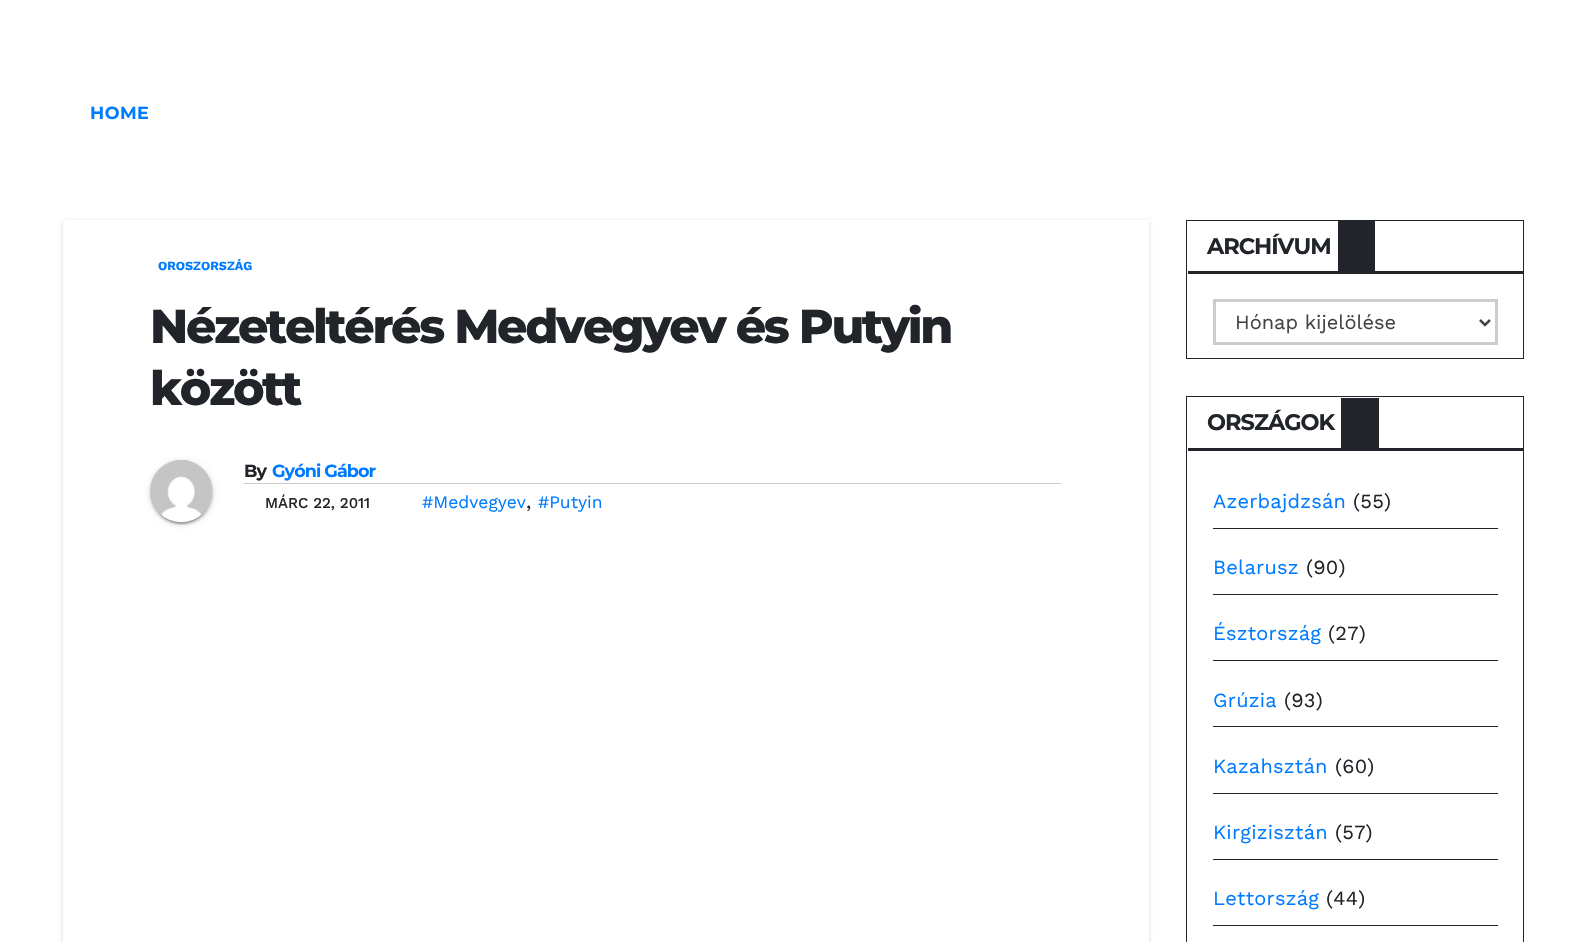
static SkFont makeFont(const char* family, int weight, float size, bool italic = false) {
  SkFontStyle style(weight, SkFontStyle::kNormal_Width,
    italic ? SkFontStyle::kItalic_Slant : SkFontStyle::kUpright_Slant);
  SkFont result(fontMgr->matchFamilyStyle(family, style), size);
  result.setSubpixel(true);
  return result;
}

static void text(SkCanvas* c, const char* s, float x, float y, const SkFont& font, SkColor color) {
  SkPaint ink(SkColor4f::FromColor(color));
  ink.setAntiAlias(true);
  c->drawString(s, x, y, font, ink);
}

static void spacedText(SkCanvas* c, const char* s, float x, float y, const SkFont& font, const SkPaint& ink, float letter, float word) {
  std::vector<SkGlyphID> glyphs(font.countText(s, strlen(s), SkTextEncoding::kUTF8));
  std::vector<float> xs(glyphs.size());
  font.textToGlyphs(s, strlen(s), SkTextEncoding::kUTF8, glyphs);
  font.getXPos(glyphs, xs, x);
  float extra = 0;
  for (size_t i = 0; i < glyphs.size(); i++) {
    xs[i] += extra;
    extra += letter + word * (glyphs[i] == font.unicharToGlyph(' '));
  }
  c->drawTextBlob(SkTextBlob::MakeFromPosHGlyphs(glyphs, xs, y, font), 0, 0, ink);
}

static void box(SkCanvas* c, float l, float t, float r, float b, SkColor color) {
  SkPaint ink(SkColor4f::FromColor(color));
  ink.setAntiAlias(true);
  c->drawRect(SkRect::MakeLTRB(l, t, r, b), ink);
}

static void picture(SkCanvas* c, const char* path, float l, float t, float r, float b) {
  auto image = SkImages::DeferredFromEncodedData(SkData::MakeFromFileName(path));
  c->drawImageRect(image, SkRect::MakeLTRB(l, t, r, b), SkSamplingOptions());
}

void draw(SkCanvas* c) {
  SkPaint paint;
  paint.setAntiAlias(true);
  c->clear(0xffffffff);
  SkFont face1 = makeFont("Montserrat", 700, 17.5f);
  paint.setColor(0xff007bff);
  spacedText(c, "HOME", 90, 119, face1, paint, 0.5f, 0);
  paint.setColor(0x26000000);
  paint.setMaskFilter(SkMaskFilter::MakeBlur(kNormal_SkBlurStyle, 2));
  c->drawRect(SkRect::MakeLTRB(63, 221, 1149, 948), paint);
  paint.setMaskFilter(nullptr);
  box(c, 63, 220, 1149, 942, 0xffffffff);
  SkFont face2 = makeFont("Work Sans", 700, 12.5f);
  text(c, "OROSZORSZÁG", 158, 270, face2, 0xff007bff);
  SkFont face3 = makeFont("Montserrat", 800, 47.5f);
  paint.setColor(0xff212529);
  spacedText(c, "Nézeteltérés Medvegyev és Putyin", 150, 343, face3, paint, -2.4f, 0);
  spacedText(c, "között", 150, 405, face3, paint, -2.4f, 0);
  paint.setColor(0x1f000000);
  paint.setMaskFilter(SkMaskFilter::MakeBlur(kNormal_SkBlurStyle, 3));
  c->drawRoundRect(SkRect::MakeLTRB(150, 461, 213, 524), 31.5f, 31.5f, paint);
  paint.setMaskFilter(nullptr);
  paint.setColor(0x33000000);
  paint.setMaskFilter(SkMaskFilter::MakeBlur(kNormal_SkBlurStyle, 0.5f));
  c->drawRoundRect(SkRect::MakeLTRB(153, 466, 210, 524), 28.5f, 28.5f, paint);
  paint.setMaskFilter(nullptr);
  paint.setColor(0x24000000);
  paint.setMaskFilter(SkMaskFilter::MakeBlur(kNormal_SkBlurStyle, 1));
  c->drawRoundRect(SkRect::MakeLTRB(150, 463, 213, 525), 31, 31, paint);
  paint.setMaskFilter(nullptr);
  picture(c, "img_01.png", 150, 460, 213, 522);
  box(c, 244, 483, 1061, 484, 0xffcccccc);
  paint.setColor(0xff212529);
  spacedText(c, "By", 244, 477, face1, paint, -0.9f, 0);
  paint.setColor(0xff007bff);
  spacedText(c, "Gyóni Gábor", 272, 477, face1, paint, -0.9f, 0);
  SkFont face4 = makeFont("Work Sans", 500, 15);
  text(c, "MÁRC 22, 2011", 265, 508, face4, 0xff212529);
  SkFont face5 = makeFont("Work Sans", 400, 17.5f);
  text(c, "#Medvegyev", 422, 508, face5, 0xff007bff);
  SkFont face6 = makeFont("Work Sans", 400, 20);
  text(c, ",", 526, 508, face6, 0xff212529);
  text(c, "#Putyin", 538, 508, face5, 0xff007bff);
  paint.setStyle(SkPaint::kStroke_Style);
  paint.setStrokeWidth(1);
  paint.setColor(0xff212529);
  c->drawRect(SkRect::MakeLTRB(1186.5f, 220.5f, 1523.5f, 358.5f), paint);
  box(c, 1188, 271, 1523, 274, 0xff212529);
  SkFont face7 = makeFont("Montserrat", 700, 22.5f);
  paint.setStyle(SkPaint::kFill_Style);
  spacedText(c, "ARCHÍVUM", 1207, 254, face7, paint, -1, 0);
  box(c, 1338, 221, 1375, 271, 0xff212529);
  paint.setStyle(SkPaint::kStroke_Style);
  paint.setStrokeWidth(3);
  paint.setColor(0xffcccccc);
  c->drawRect(SkRect::MakeLTRB(1214.5f, 300.5f, 1496.5f, 343.5f), paint);
  paint.setStrokeWidth(2.5f);
  paint.setColor(0xff444444);
  c->drawPath(SkPathBuilder().moveTo(1480, 320).lineTo(1485, 325).lineTo(1490, 320).detach(), paint);
  text(c, "Hónap kijelölése", 1235, 329, face6, 0xff444444);
  paint.setStrokeWidth(1);
  paint.setColor(0xff212529);
  c->drawRect(SkRect::MakeLTRB(1186.5f, 396.5f, 1523.5f, 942.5f), paint);
  box(c, 1188, 448, 1523, 451, 0xff212529);
  paint.setStyle(SkPaint::kFill_Style);
  spacedText(c, "ORSZÁGOK", 1207, 430, face7, paint, -1, 0);
  box(c, 1341, 398, 1379, 448, 0xff212529);
  box(c, 1213, 528, 1498, 529, 0xff212529);
  paint.setColor(0xff007bff);
  spacedText(c, "Azerbajdzsán", 1213, 508, face6, paint, 0.25f, 0);
  paint.setColor(0xff212529);
  spacedText(c, "(55)", 1353, 508, face6, paint, 0.25f, 0);
  box(c, 1213, 594, 1498, 595, 0xff212529);
  paint.setColor(0xff007bff);
  spacedText(c, "Belarusz", 1213, 574, face6, paint, 0.25f, 0);
  paint.setColor(0xff212529);
  spacedText(c, "(90)", 1306, 574, face6, paint, 0.25f, 0);
  box(c, 1213, 660, 1498, 661, 0xff212529);
  paint.setColor(0xff007bff);
  spacedText(c, "Észtország", 1213, 640, face6, paint, 0.25f, 0);
  paint.setColor(0xff212529);
  spacedText(c, "(27)", 1328, 640, face6, paint, 0.25f, 0);
  box(c, 1213, 726, 1498, 727, 0xff212529);
  paint.setColor(0xff007bff);
  spacedText(c, "Grúzia", 1213, 707, face6, paint, 0.25f, 0);
  paint.setColor(0xff212529);
  spacedText(c, "(93)", 1284, 707, face6, paint, 0.25f, 0);
  box(c, 1213, 793, 1498, 794, 0xff212529);
  paint.setColor(0xff007bff);
  spacedText(c, "Kazahsztán", 1213, 773, face6, paint, 0.25f, 0);
  paint.setColor(0xff212529);
  spacedText(c, "(60)", 1335, 773, face6, paint, 0.25f, 0);
  box(c, 1213, 859, 1498, 860, 0xff212529);
  paint.setColor(0xff007bff);
  spacedText(c, "Kirgizisztán", 1213, 839, face6, paint, 0.25f, 0);
  paint.setColor(0xff212529);
  spacedText(c, "(57)", 1335, 839, face6, paint, 0.25f, 0);
  box(c, 1213, 925, 1498, 926, 0xff212529);
  paint.setColor(0xff007bff);
  spacedText(c, "Lettország", 1213, 905, face6, paint, 0.25f, 0);
  paint.setColor(0xff212529);
  spacedText(c, "(44)", 1326, 905, face6, paint, 0.25f, 0);
}
